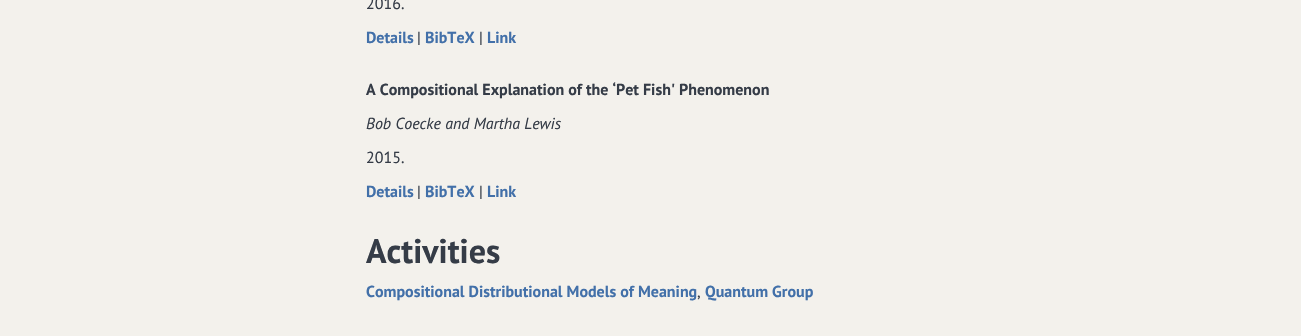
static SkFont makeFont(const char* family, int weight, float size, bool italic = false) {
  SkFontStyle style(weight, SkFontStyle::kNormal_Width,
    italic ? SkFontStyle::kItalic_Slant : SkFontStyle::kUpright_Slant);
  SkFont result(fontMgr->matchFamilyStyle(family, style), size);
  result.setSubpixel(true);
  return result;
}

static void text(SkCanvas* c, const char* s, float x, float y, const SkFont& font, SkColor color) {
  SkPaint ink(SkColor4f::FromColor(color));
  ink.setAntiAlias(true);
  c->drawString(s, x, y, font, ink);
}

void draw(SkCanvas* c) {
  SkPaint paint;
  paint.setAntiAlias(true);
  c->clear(0xfff3f1ec);
  SkFont face1 = makeFont("PT Sans", 400, 16);
  text(c, "2016.", 366, 9, face1, 0xff353c47);
  SkFont face2 = makeFont("PT Sans", 700, 16);
  text(c, "Details", 366, 43, face2, 0xff4270a9);
  text(c, "|", 417, 43, face1, 0xff353c47);
  text(c, "BibTeX", 425, 43, face2, 0xff4270a9);
  text(c, "|", 479, 43, face1, 0xff353c47);
  text(c, "Link", 487, 43, face2, 0xff4270a9);
  text(c, "A Compositional Explanation of the ‘Pet Fish' Phenomenon", 366, 95, face2, 0xff353c47);
  SkFont face3 = makeFont("PT Sans", 400, 16, true);
  text(c, "Bob Coecke and Martha Lewis", 366, 129, face3, 0xff353c47);
  text(c, "2015.", 366, 163, face1, 0xff353c47);
  text(c, "Details", 366, 197, face2, 0xff4270a9);
  text(c, "|", 417, 197, face1, 0xff353c47);
  text(c, "BibTeX", 425, 197, face2, 0xff4270a9);
  text(c, "|", 479, 197, face1, 0xff353c47);
  text(c, "Link", 487, 197, face2, 0xff4270a9);
  SkFont face4 = makeFont("PT Sans", 700, 34);
  text(c, "Activities", 366, 263, face4, 0xff353c47);
  text(c, "Compositional Distributional Models of Meaning", 366, 297, face2, 0xff4270a9);
  text(c, ",", 697, 297, face1, 0xff353c47);
  text(c, "Quantum Group", 705, 297, face2, 0xff4270a9);
}
